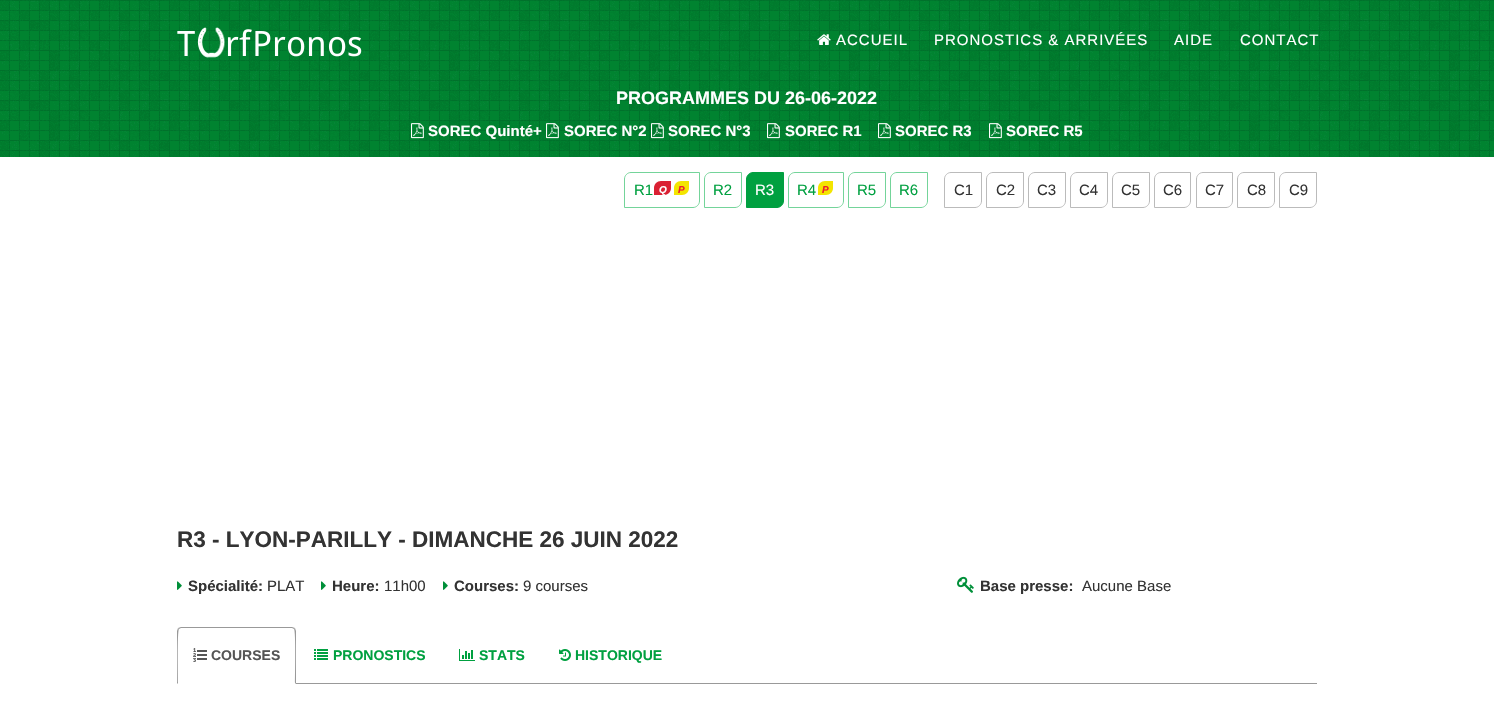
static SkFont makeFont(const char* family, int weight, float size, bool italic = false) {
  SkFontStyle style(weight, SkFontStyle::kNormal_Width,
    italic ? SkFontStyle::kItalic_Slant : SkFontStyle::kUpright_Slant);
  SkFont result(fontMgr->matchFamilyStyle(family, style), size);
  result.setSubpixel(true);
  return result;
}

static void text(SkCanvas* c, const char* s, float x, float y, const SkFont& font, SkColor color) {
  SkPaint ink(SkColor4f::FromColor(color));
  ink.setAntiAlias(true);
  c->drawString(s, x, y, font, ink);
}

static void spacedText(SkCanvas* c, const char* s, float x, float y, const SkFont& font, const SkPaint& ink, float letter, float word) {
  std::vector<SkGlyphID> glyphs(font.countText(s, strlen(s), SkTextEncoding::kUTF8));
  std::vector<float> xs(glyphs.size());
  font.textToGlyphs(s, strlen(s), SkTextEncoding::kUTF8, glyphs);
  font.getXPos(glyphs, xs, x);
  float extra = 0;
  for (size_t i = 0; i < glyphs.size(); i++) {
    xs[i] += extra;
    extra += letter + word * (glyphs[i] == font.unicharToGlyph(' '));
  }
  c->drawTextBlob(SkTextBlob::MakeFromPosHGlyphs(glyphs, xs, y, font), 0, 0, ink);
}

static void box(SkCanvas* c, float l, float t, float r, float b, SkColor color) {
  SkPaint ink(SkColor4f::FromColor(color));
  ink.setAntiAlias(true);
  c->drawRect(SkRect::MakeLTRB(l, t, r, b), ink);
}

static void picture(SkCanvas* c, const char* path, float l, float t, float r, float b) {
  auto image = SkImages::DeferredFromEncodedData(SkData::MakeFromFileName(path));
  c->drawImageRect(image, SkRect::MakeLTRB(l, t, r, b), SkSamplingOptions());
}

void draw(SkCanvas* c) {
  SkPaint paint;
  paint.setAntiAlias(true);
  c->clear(0xffffffff);
  box(c, 0, 0, 1494, 157, 0xff008330);
  picture(c, "img_01.png", 0, 0, 1494, 157);
  picture(c, "img_02.png", 177, 27, 362, 58);
  picture(c, "img_03.png", 817, 34, 831, 45);
  SkFont face1 = makeFont("Liberation Sans", 400, 15);
  paint.setColor(0xffffffff);
  spacedText(c, "ACCUEIL", 836, 45, face1, paint, 1, 0);
  spacedText(c, "PRONOSTICS & ARRIVÉES", 934, 45, face1, paint, 1, 0);
  spacedText(c, "AIDE", 1174, 45, face1, paint, 1, 0);
  spacedText(c, "CONTACT", 1240, 45, face1, paint, 1, 0);
  SkFont face2 = makeFont("Liberation Sans", 700, 18);
  text(c, "PROGRAMMES DU 26-06-2022", 616, 104, face2, 0xffffffff);
  picture(c, "img_04.png", 411, 123, 424, 139);
  SkFont face3 = makeFont("Liberation Sans", 700, 15);
  text(c, "SOREC Quinté+", 428, 136, face3, 0xffffffff);
  picture(c, "img_05.png", 546, 123, 559, 139);
  text(c, "SOREC N°2", 564, 136, face3, 0xffffffff);
  picture(c, "img_06.png", 651, 123, 664, 139);
  text(c, "SOREC N°3", 668, 136, face3, 0xffffffff);
  picture(c, "img_07.png", 767, 123, 780, 139);
  text(c, "SOREC R1", 785, 136, face3, 0xffffffff);
  picture(c, "img_08.png", 878, 123, 891, 139);
  text(c, "SOREC R3", 895, 136, face3, 0xffffffff);
  picture(c, "img_09.png", 989, 123, 1002, 139);
  text(c, "SOREC R5", 1006, 136, face3, 0xffffffff);
  paint.setStyle(SkPaint::kStroke_Style);
  paint.setStrokeWidth(1);
  paint.setColor(0xff74d49a);
  c->drawPath(SkPathBuilder().moveTo(631, 172.5f).lineTo(699.5f, 172.5f).lineTo(699.5f, 201).cubicTo(699.5f, 204.5f, 696.5f, 207.5f, 693, 207.5f).lineTo(624.5f, 207.5f).lineTo(624.5f, 179).cubicTo(624.5f, 175.5f, 627.5f, 172.5f, 631, 172.5f).close().detach(), paint);
  text(c, "R1", 634, 195, face1, 0xff00a040);
  paint.setStyle(SkPaint::kFill_Style);
  paint.setColor(0xffda2033);
  c->drawPath(SkPathBuilder().moveTo(661, 181).lineTo(671, 181).lineTo(671, 188).cubicTo(671, 192, 668, 195, 664, 195).lineTo(654, 195).lineTo(654, 188).cubicTo(654, 184, 657, 181, 661, 181).close().detach(), paint);
  SkFont face4 = makeFont("Liberation Sans", 700, 10, true);
  text(c, "Q", 659, 193, face4, 0xffffffff);
  paint.setColor(0xfff3e500);
  c->drawPath(SkPathBuilder().moveTo(681, 181).lineTo(689, 181).lineTo(689, 188).cubicTo(689, 192, 686, 195, 682, 195).lineTo(674, 195).lineTo(674, 188).cubicTo(674, 184, 677, 181, 681, 181).close().detach(), paint);
  text(c, "P", 678, 193, face4, 0xffee1c2f);
  paint.setStyle(SkPaint::kStroke_Style);
  paint.setColor(0xff74d49a);
  c->drawPath(SkPathBuilder().moveTo(711, 172.5f).lineTo(741.5f, 172.5f).lineTo(741.5f, 201).cubicTo(741.5f, 204.5f, 738.5f, 207.5f, 735, 207.5f).lineTo(704.5f, 207.5f).lineTo(704.5f, 179).cubicTo(704.5f, 175.5f, 707.5f, 172.5f, 711, 172.5f).close().detach(), paint);
  text(c, "R2", 713, 195, face1, 0xff00a040);
  paint.setStyle(SkPaint::kFill_Style);
  paint.setColor(0xff00a040);
  c->drawPath(SkPathBuilder().moveTo(753, 172.5f).lineTo(783.5f, 172.5f).lineTo(783.5f, 201).cubicTo(783.5f, 204.5f, 780.5f, 207.5f, 777, 207.5f).lineTo(746.5f, 207.5f).lineTo(746.5f, 179).cubicTo(746.5f, 175.5f, 749.5f, 172.5f, 753, 172.5f).close().detach(), paint);
  paint.setStyle(SkPaint::kStroke_Style);
  c->drawPath(SkPathBuilder().moveTo(753, 172.5f).lineTo(783.5f, 172.5f).lineTo(783.5f, 201).cubicTo(783.5f, 204.5f, 780.5f, 207.5f, 777, 207.5f).lineTo(746.5f, 207.5f).lineTo(746.5f, 179).cubicTo(746.5f, 175.5f, 749.5f, 172.5f, 753, 172.5f).close().detach(), paint);
  text(c, "R3", 755, 195, face1, 0xffffffff);
  paint.setColor(0xff74d49a);
  c->drawPath(SkPathBuilder().moveTo(795, 172.5f).lineTo(843.5f, 172.5f).lineTo(843.5f, 201).cubicTo(843.5f, 204.5f, 840.5f, 207.5f, 837, 207.5f).lineTo(788.5f, 207.5f).lineTo(788.5f, 179).cubicTo(788.5f, 175.5f, 791.5f, 172.5f, 795, 172.5f).close().detach(), paint);
  text(c, "R4", 797, 195, face1, 0xff00a040);
  paint.setStyle(SkPaint::kFill_Style);
  paint.setColor(0xfff3e500);
  c->drawPath(SkPathBuilder().moveTo(825, 181).lineTo(833, 181).lineTo(833, 188).cubicTo(833, 192, 830, 195, 826, 195).lineTo(818, 195).lineTo(818, 188).cubicTo(818, 184, 821, 181, 825, 181).close().detach(), paint);
  text(c, "P", 822, 193, face4, 0xffee1c2f);
  paint.setStyle(SkPaint::kStroke_Style);
  paint.setColor(0xff74d49a);
  c->drawPath(SkPathBuilder().moveTo(855, 172.5f).lineTo(885.5f, 172.5f).lineTo(885.5f, 201).cubicTo(885.5f, 204.5f, 882.5f, 207.5f, 879, 207.5f).lineTo(848.5f, 207.5f).lineTo(848.5f, 179).cubicTo(848.5f, 175.5f, 851.5f, 172.5f, 855, 172.5f).close().detach(), paint);
  text(c, "R5", 857, 195, face1, 0xff00a040);
  c->drawPath(SkPathBuilder().moveTo(897, 172.5f).lineTo(927.5f, 172.5f).lineTo(927.5f, 201).cubicTo(927.5f, 204.5f, 924.5f, 207.5f, 921, 207.5f).lineTo(890.5f, 207.5f).lineTo(890.5f, 179).cubicTo(890.5f, 175.5f, 893.5f, 172.5f, 897, 172.5f).close().detach(), paint);
  text(c, "R6", 899, 195, face1, 0xff00a040);
  paint.setColor(0xffbbbbbb);
  c->drawPath(SkPathBuilder().moveTo(951, 172.5f).lineTo(981.5f, 172.5f).lineTo(981.5f, 201).cubicTo(981.5f, 204.5f, 978.5f, 207.5f, 975, 207.5f).lineTo(944.5f, 207.5f).lineTo(944.5f, 179).cubicTo(944.5f, 175.5f, 947.5f, 172.5f, 951, 172.5f).close().detach(), paint);
  text(c, "C1", 954, 195, face1, 0xff333333);
  c->drawPath(SkPathBuilder().moveTo(993, 172.5f).lineTo(1023.5f, 172.5f).lineTo(1023.5f, 201).cubicTo(1023.5f, 204.5f, 1020.5f, 207.5f, 1017, 207.5f).lineTo(986.5f, 207.5f).lineTo(986.5f, 179).cubicTo(986.5f, 175.5f, 989.5f, 172.5f, 993, 172.5f).close().detach(), paint);
  text(c, "C2", 996, 195, face1, 0xff333333);
  c->drawPath(SkPathBuilder().moveTo(1035, 172.5f).lineTo(1065.5f, 172.5f).lineTo(1065.5f, 201).cubicTo(1065.5f, 204.5f, 1062.5f, 207.5f, 1059, 207.5f).lineTo(1028.5f, 207.5f).lineTo(1028.5f, 179).cubicTo(1028.5f, 175.5f, 1031.5f, 172.5f, 1035, 172.5f).close().detach(), paint);
  text(c, "C3", 1037, 195, face1, 0xff333333);
  c->drawPath(SkPathBuilder().moveTo(1077, 172.5f).lineTo(1107.5f, 172.5f).lineTo(1107.5f, 201).cubicTo(1107.5f, 204.5f, 1104.5f, 207.5f, 1101, 207.5f).lineTo(1070.5f, 207.5f).lineTo(1070.5f, 179).cubicTo(1070.5f, 175.5f, 1073.5f, 172.5f, 1077, 172.5f).close().detach(), paint);
  text(c, "C4", 1079, 195, face1, 0xff333333);
  c->drawPath(SkPathBuilder().moveTo(1119, 172.5f).lineTo(1149.5f, 172.5f).lineTo(1149.5f, 201).cubicTo(1149.5f, 204.5f, 1146.5f, 207.5f, 1143, 207.5f).lineTo(1112.5f, 207.5f).lineTo(1112.5f, 179).cubicTo(1112.5f, 175.5f, 1115.5f, 172.5f, 1119, 172.5f).close().detach(), paint);
  text(c, "C5", 1121, 195, face1, 0xff333333);
  c->drawPath(SkPathBuilder().moveTo(1161, 172.5f).lineTo(1190.5f, 172.5f).lineTo(1190.5f, 201).cubicTo(1190.5f, 204.5f, 1187.5f, 207.5f, 1184, 207.5f).lineTo(1154.5f, 207.5f).lineTo(1154.5f, 179).cubicTo(1154.5f, 175.5f, 1157.5f, 172.5f, 1161, 172.5f).close().detach(), paint);
  text(c, "C6", 1163, 195, face1, 0xff333333);
  c->drawPath(SkPathBuilder().moveTo(1203, 172.5f).lineTo(1232.5f, 172.5f).lineTo(1232.5f, 201).cubicTo(1232.5f, 204.5f, 1229.5f, 207.5f, 1226, 207.5f).lineTo(1196.5f, 207.5f).lineTo(1196.5f, 179).cubicTo(1196.5f, 175.5f, 1199.5f, 172.5f, 1203, 172.5f).close().detach(), paint);
  text(c, "C7", 1205, 195, face1, 0xff333333);
  c->drawPath(SkPathBuilder().moveTo(1244, 172.5f).lineTo(1274.5f, 172.5f).lineTo(1274.5f, 201).cubicTo(1274.5f, 204.5f, 1271.5f, 207.5f, 1268, 207.5f).lineTo(1237.5f, 207.5f).lineTo(1237.5f, 179).cubicTo(1237.5f, 175.5f, 1240.5f, 172.5f, 1244, 172.5f).close().detach(), paint);
  text(c, "C8", 1247, 195, face1, 0xff333333);
  c->drawPath(SkPathBuilder().moveTo(1286, 172.5f).lineTo(1316.5f, 172.5f).lineTo(1316.5f, 201).cubicTo(1316.5f, 204.5f, 1313.5f, 207.5f, 1310, 207.5f).lineTo(1279.5f, 207.5f).lineTo(1279.5f, 179).cubicTo(1279.5f, 175.5f, 1282.5f, 172.5f, 1286, 172.5f).close().detach(), paint);
  text(c, "C9", 1289, 195, face1, 0xff333333);
  SkFont face5 = makeFont("Liberation Sans", 700, 22.5f);
  text(c, "R3 - LYON-PARILLY - DIMANCHE 26 JUIN 2022", 177, 547, face5, 0xff333333);
  picture(c, "img_10.png", 177, 581, 182, 590);
  text(c, "Spécialité:", 188, 591, face3, 0xff333333);
  text(c, "PLAT", 267, 591, face1, 0xff333333);
  picture(c, "img_10.png", 321, 581, 326, 590);
  text(c, "Heure:", 332, 591, face3, 0xff333333);
  text(c, "11h00", 384, 591, face1, 0xff333333);
  picture(c, "img_10.png", 443, 581, 448, 590);
  text(c, "Courses:", 454, 591, face3, 0xff333333);
  text(c, "9 courses", 523, 591, face1, 0xff333333);
  picture(c, "img_11.png", 957, 576, 974, 593);
  text(c, "Base presse:", 980, 591, face3, 0xff333333);
  text(c, "Aucune Base", 1082, 591, face1, 0xff333333);
  box(c, 296, 683, 1317, 684, 0xff999999);
  paint.setStyle(SkPaint::kFill_Style);
  paint.setColor(0xff999999);
  c->drawPath(SkPathBuilder().moveTo(181, 627).lineTo(178, 628).lineTo(179, 629).lineTo(181, 628).lineTo(292, 628).lineTo(294, 629).lineTo(295, 628).lineTo(292, 627).close().detach(), paint);
  c->drawPath(SkPathBuilder().moveTo(296, 684).lineTo(296, 631).lineTo(295, 628).lineTo(294, 629).cubicTo(296, 631, 295, 677, 295, 683).close().detach(), paint);
  c->drawPath(SkPathBuilder().moveTo(177, 684).lineTo(178, 683).cubicTo(178, 677, 177, 631, 179, 629).lineTo(178, 628).lineTo(177, 631).close().detach(), paint);
  picture(c, "img_12.png", 193, 648, 207, 662);
  SkFont face6 = makeFont("Liberation Sans", 700, 14);
  text(c, "COURSES", 211, 660, face6, 0xff555555);
  picture(c, "img_13.png", 314, 649, 328, 660);
  text(c, "PRONOSTICS", 333, 660, face6, 0xff00a040);
  picture(c, "img_14.png", 459, 649, 475, 661);
  text(c, "STATS", 479, 660, face6, 0xff00a040);
  picture(c, "img_15.png", 559, 649, 571, 661);
  text(c, "HISTORIQUE", 575, 660, face6, 0xff00a040);
}
